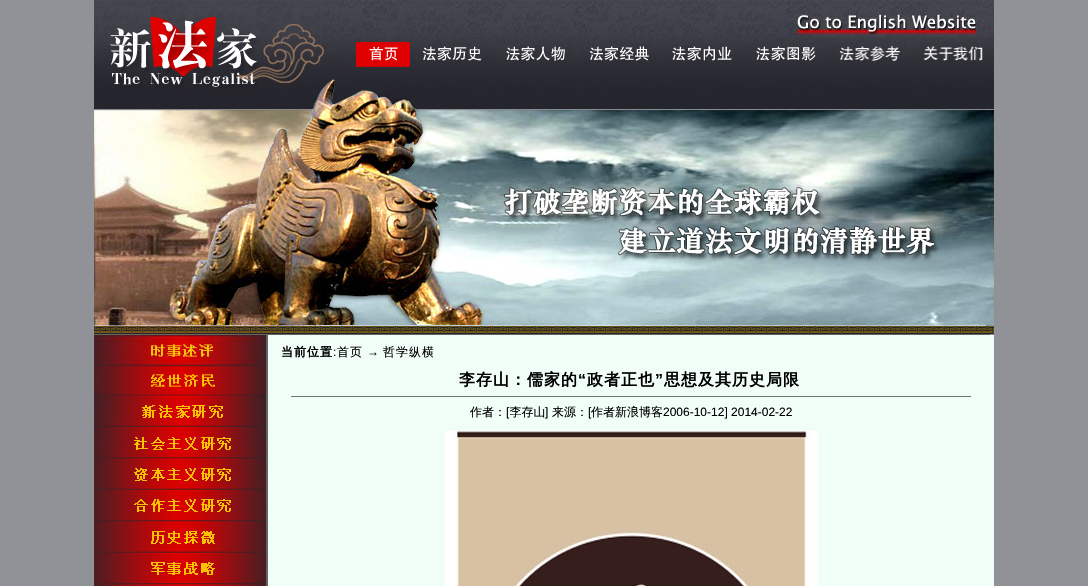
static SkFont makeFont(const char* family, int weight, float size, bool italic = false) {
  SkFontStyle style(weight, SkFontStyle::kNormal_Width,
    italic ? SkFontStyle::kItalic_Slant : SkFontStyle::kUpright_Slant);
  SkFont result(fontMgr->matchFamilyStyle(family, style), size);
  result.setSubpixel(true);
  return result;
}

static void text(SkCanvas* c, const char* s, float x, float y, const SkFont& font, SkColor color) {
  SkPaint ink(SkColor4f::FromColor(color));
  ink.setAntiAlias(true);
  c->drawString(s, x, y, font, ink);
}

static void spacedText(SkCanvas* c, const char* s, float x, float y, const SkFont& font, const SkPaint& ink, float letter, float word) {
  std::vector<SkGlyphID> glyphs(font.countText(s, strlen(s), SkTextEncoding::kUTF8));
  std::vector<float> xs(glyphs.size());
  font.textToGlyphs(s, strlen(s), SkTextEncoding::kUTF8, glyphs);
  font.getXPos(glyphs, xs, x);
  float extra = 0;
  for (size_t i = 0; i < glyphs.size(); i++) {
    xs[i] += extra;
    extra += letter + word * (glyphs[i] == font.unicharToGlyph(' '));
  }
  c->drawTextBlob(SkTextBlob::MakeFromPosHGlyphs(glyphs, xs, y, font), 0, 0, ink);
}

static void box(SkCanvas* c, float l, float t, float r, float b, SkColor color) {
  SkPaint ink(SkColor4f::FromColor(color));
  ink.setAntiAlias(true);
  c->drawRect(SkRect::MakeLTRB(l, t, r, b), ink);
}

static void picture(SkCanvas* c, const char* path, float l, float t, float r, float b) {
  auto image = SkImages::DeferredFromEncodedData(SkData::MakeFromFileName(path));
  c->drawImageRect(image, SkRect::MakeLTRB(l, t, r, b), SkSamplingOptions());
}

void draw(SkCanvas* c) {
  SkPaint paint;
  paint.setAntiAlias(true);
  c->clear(0xff919198);
  picture(c, "img_01.png", 94, 0, 328, 109);
  picture(c, "img_02.png", 328, 0, 994, 37);
  picture(c, "img_03.png", 328, 37, 994, 109);
  picture(c, "img_04.png", 356, 42, 410, 67);
  picture(c, "img_05.png", 420, 42, 493, 61);
  picture(c, "img_06.png", 506, 45, 573, 61);
  picture(c, "img_07.png", 589, 42, 649, 61);
  picture(c, "img_08.png", 672, 43, 732, 61);
  picture(c, "img_09.png", 754, 42, 817, 61);
  picture(c, "img_10.png", 831, 46, 902, 61);
  picture(c, "img_11.png", 918, 42, 994, 64);
  picture(c, "img_12.png", 94, 109, 994, 326);
  picture(c, "img_13.png", 94, 326, 994, 334);
  box(c, 94, 334, 990, 335, 0xff646464);
  picture(c, "img_14.png", 94, 335, 266, 365);
  picture(c, "img_15.png", 94, 365, 266, 395);
  picture(c, "img_16.png", 94, 395, 266, 425);
  picture(c, "img_17.png", 94, 425, 266, 456);
  picture(c, "img_18.png", 94, 456, 266, 489);
  picture(c, "img_19.png", 94, 489, 266, 519);
  picture(c, "img_20.png", 94, 519, 266, 552);
  picture(c, "img_21.png", 94, 552, 266, 583);
  picture(c, "img_22.png", 94, 583, 266, 586);
  box(c, 266, 335, 268, 586, 0xff646464);
  box(c, 268, 335, 994, 586, 0xfff1fef7);
  SkFont face1 = makeFont("WenQuanYi Zen Hei", 700, 12);
  paint.setColor(0xff000000);
  spacedText(c, "当前位置", 281, 356, face1, paint, 1, 0);
  SkFont face2 = makeFont("Liberation Sans", 400, 12);
  spacedText(c, ":", 333, 356, face2, paint, 1, 0);
  SkFont face3 = makeFont("WenQuanYi Zen Hei", 500, 12);
  spacedText(c, "首页", 337, 356, face3, paint, 1, 0);
  spacedText(c, "→", 367, 356, face2, paint, 1, 0);
  spacedText(c, "哲学纵横", 383, 356, face3, paint, 1, 0);
  SkFont face4 = makeFont("WenQuanYi Zen Hei", 700, 16);
  spacedText(c, "李存山：儒家的", 459, 385, face4, paint, 1, 0);
  SkFont face5 = makeFont("Liberation Sans", 700, 16);
  spacedText(c, "“", 578, 385, face5, paint, 1, 0);
  spacedText(c, "政者正也", 587, 385, face4, paint, 1, 0);
  spacedText(c, "”", 655, 385, face5, paint, 1, 0);
  spacedText(c, "思想及其历史局限", 664, 385, face4, paint, 1, 0);
  box(c, 291, 396, 971, 397, 0xff727272);
  text(c, "作者： 李存山", 470, 416, face3, 0xff000000);
  text(c, "来源：", 552, 416, face3, 0xff000000);
  text(c, "[", 588, 416, face2, 0xff000000);
  text(c, "作者新浪博客", 591, 416, face3, 0xff000000);
  text(c, "[", 506, 416, face2, 0xff000000);
  text(c, "]", 545, 416, face2, 0xff000000);
  text(c, "2006-10-12] 2014-02-22", 663, 416, face2, 0xff000000);
  picture(c, "img_23.png", 445, 431, 818, 586);
}
